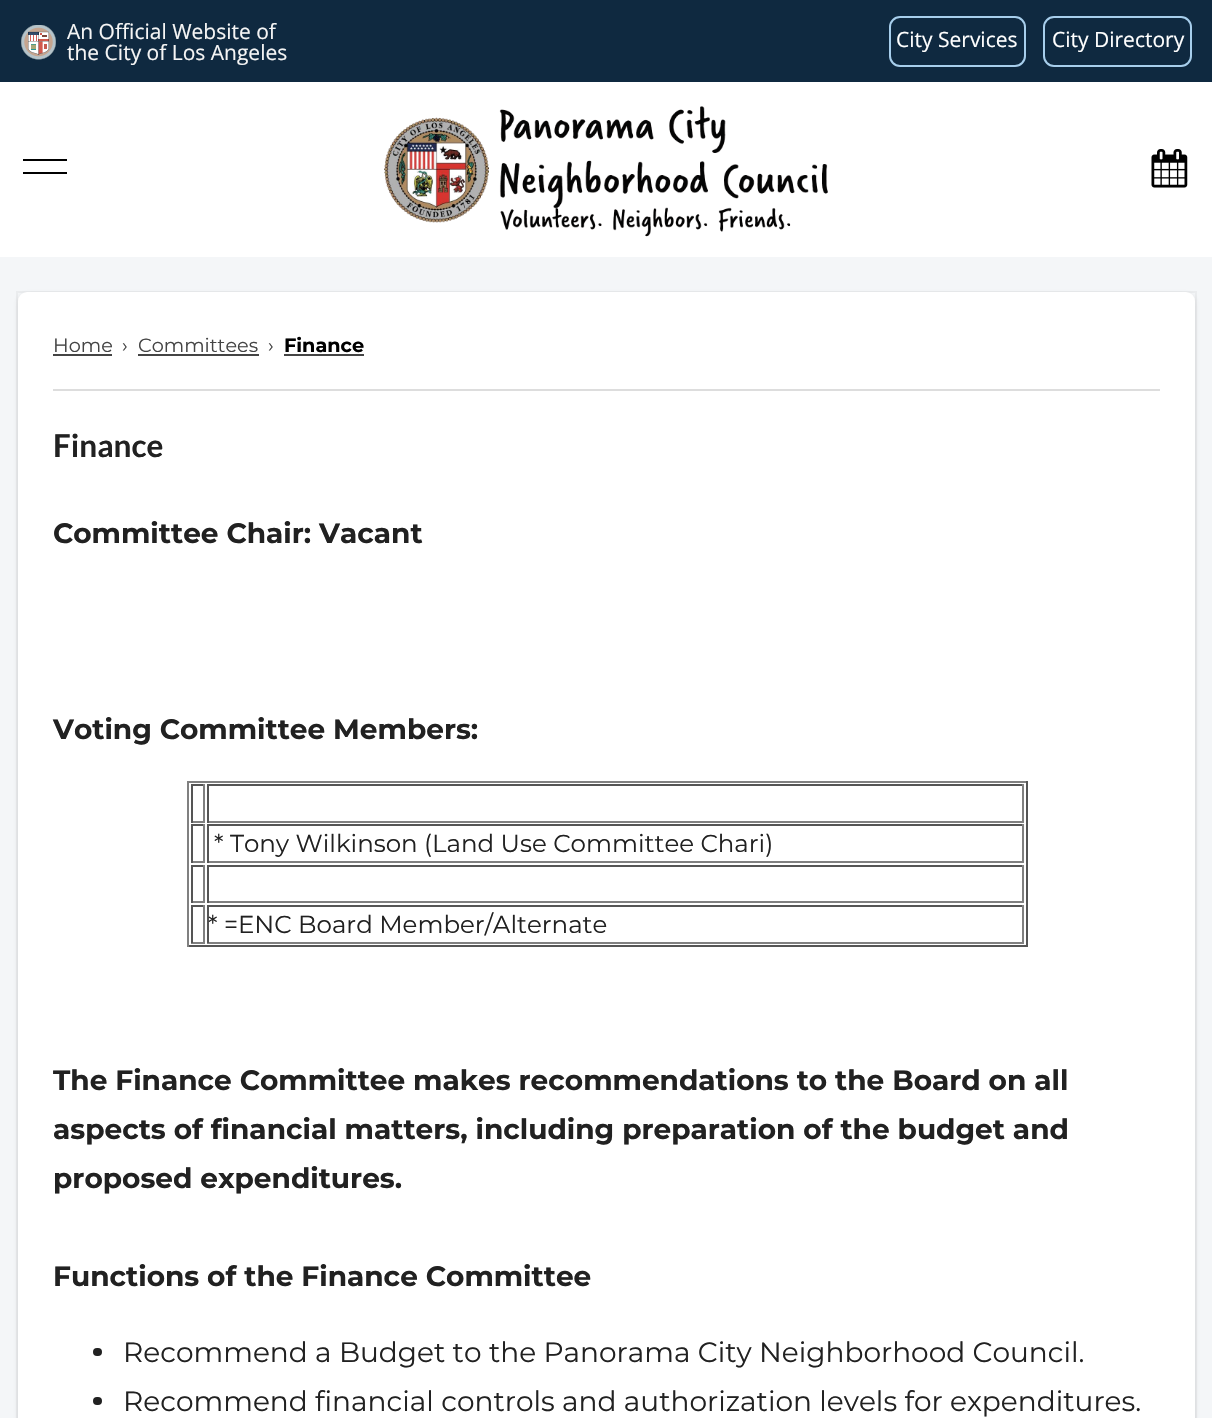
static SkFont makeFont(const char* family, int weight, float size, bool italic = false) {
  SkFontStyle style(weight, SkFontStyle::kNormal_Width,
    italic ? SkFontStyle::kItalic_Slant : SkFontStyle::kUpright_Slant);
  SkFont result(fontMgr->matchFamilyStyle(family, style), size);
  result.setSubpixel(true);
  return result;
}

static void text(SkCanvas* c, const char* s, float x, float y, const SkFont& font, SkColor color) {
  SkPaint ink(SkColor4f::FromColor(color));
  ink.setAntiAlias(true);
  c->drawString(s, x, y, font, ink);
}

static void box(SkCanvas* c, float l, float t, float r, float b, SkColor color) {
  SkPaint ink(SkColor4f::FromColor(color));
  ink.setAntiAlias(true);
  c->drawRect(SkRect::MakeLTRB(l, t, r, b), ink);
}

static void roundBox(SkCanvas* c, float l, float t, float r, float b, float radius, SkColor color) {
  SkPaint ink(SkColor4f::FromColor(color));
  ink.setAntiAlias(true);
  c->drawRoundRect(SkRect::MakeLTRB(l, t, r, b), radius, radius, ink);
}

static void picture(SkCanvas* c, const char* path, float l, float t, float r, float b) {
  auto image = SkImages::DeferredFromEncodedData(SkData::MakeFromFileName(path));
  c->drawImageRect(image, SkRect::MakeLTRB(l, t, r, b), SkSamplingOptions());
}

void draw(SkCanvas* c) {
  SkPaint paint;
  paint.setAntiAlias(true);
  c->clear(0xfff4f6f8);
  box(c, 0, 0, 1212, 82, 0xff0f2940);
  picture(c, "img_01.png", 21, 25, 56, 60);
  SkFont face1 = makeFont("Open Sans", 400, 21);
  text(c, "An Official Website of", 67, 39, face1, 0xfff5f5f5);
  text(c, "the City of Los Angeles", 67, 60, face1, 0xfff5f5f5);
  paint.setStyle(SkPaint::kStroke_Style);
  paint.setStrokeWidth(2);
  paint.setColor(0xffa7ceec);
  c->drawRoundRect(SkRect::MakeLTRB(890, 17, 1025, 66), 10, 10, paint);
  text(c, "City Services", 896, 47, face1, 0xffffffff);
  c->drawRoundRect(SkRect::MakeLTRB(1044, 17, 1191, 66), 10, 10, paint);
  text(c, "City Directory", 1052, 47, face1, 0xffffffff);
  box(c, 0, 82, 1212, 257, 0xffffffff);
  box(c, 23, 159, 67, 161, 0xff000000);
  box(c, 23, 172, 67, 174, 0xff000000);
  picture(c, "img_02.png", 384, 106, 828, 237);
  picture(c, "img_03.png", 1151, 149, 1188, 188);
  paint.setStyle(SkPaint::kFill_Style);
  paint.setColor(0x263f3f44);
  paint.setMaskFilter(SkMaskFilter::MakeBlur(kNormal_SkBlurStyle, 2.5f));
  c->drawRoundRect(SkRect::MakeLTRB(18, 294, 1195, 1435), 9, 9, paint);
  paint.setMaskFilter(nullptr);
  paint.setStyle(SkPaint::kStroke_Style);
  paint.setColor(0x0d3f3f44);
  c->drawRect(SkRect::MakeLTRB(17, 292, 1196, 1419), paint);
  roundBox(c, 18, 292, 1195, 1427, 9, 0xffffffff);
  box(c, 53, 389, 1160, 391, 0xffdddddd);
  SkFont face2 = makeFont("Montserrat", 400, 19.25f);
  text(c, "Home", 53, 352, face2, 0xff444444);
  box(c, 53, 354, 112, 356, 0xff444444);
  text(c, "›", 122, 352, face2, 0xff444444);
  text(c, "Committees", 138, 352, face2, 0xff444444);
  box(c, 138, 354, 259, 356, 0xff444444);
  text(c, "›", 268, 352, face2, 0xff444444);
  SkFont face3 = makeFont("Montserrat", 700, 19.25f);
  text(c, "Finance", 284, 352, face3, 0xff000000);
  box(c, 284, 354, 364, 356, 0xff444444);
  SkFont face4 = makeFont("Lato", 700, 31.5f);
  text(c, "Finance", 53, 457, face4, 0xff212121);
  SkFont face5 = makeFont("Montserrat", 700, 28);
  text(c, "Committee Chair: Vacant", 53, 543, face5, 0xff212121);
  text(c, "Voting Committee Members:", 53, 739, face5, 0xff212121);
  box(c, 187, 781, 1027, 783, 0xff808080);
  box(c, 1026, 781, 1028, 947, 0xff555555);
  box(c, 187, 945, 1027, 947, 0xff555555);
  box(c, 187, 781, 189, 947, 0xff808080);
  box(c, 191, 784, 205, 786, 0xff555555);
  box(c, 203, 784, 205, 823, 0xff808080);
  box(c, 191, 821, 205, 823, 0xff808080);
  box(c, 191, 784, 193, 823, 0xff555555);
  box(c, 207, 784, 1024, 786, 0xff555555);
  box(c, 1022, 784, 1024, 823, 0xff808080);
  box(c, 207, 821, 1024, 823, 0xff808080);
  box(c, 207, 784, 209, 823, 0xff555555);
  box(c, 191, 824, 205, 826, 0xff555555);
  box(c, 203, 824, 205, 863, 0xff808080);
  box(c, 191, 861, 205, 863, 0xff808080);
  box(c, 191, 824, 193, 863, 0xff555555);
  box(c, 207, 824, 1024, 826, 0xff555555);
  box(c, 1022, 824, 1024, 863, 0xff808080);
  box(c, 207, 861, 1024, 863, 0xff808080);
  box(c, 207, 824, 209, 863, 0xff555555);
  SkFont face6 = makeFont("Montserrat", 400, 24.5f);
  text(c, "* Tony Wilkinson (Land Use Committee Chari)", 214, 852, face6, 0xff212121);
  box(c, 191, 865, 205, 867, 0xff555555);
  box(c, 203, 865, 205, 903, 0xff808080);
  box(c, 191, 901, 205, 903, 0xff808080);
  box(c, 191, 865, 193, 903, 0xff555555);
  box(c, 207, 865, 1024, 867, 0xff555555);
  box(c, 1022, 865, 1024, 903, 0xff808080);
  box(c, 207, 901, 1024, 903, 0xff808080);
  box(c, 207, 865, 209, 903, 0xff555555);
  box(c, 191, 905, 205, 907, 0xff555555);
  box(c, 203, 905, 205, 943, 0xff808080);
  box(c, 191, 942, 205, 944, 0xff808080);
  box(c, 191, 905, 193, 943, 0xff555555);
  box(c, 207, 905, 1024, 907, 0xff555555);
  box(c, 1022, 905, 1024, 943, 0xff808080);
  box(c, 207, 942, 1024, 944, 0xff808080);
  box(c, 207, 905, 209, 943, 0xff555555);
  text(c, "* =ENC Board Member/Alternate", 208, 933, face6, 0xff212121);
  text(c, "The Finance Committee makes recommendations to the Board on all", 53, 1090, face5, 0xff212121);
  text(c, "aspects of financial matters, including preparation of the budget and", 53, 1139, face5, 0xff212121);
  text(c, "proposed expenditures.", 53, 1188, face5, 0xff212121);
  text(c, "Functions of the Finance Committee", 53, 1286, face5, 0xff212121);
  roundBox(c, 93, 1348, 102, 1356, 4, 0xff212121);
  SkFont face7 = makeFont("Montserrat", 400, 28);
  text(c, "Recommend a Budget to the Panorama City Neighborhood Council.", 123, 1362, face7, 0xff212121);
  roundBox(c, 93, 1397, 102, 1405, 4, 0xff212121);
  text(c, "Recommend financial controls and authorization levels for expenditures.", 123, 1411, face7, 0xff212121);
}
